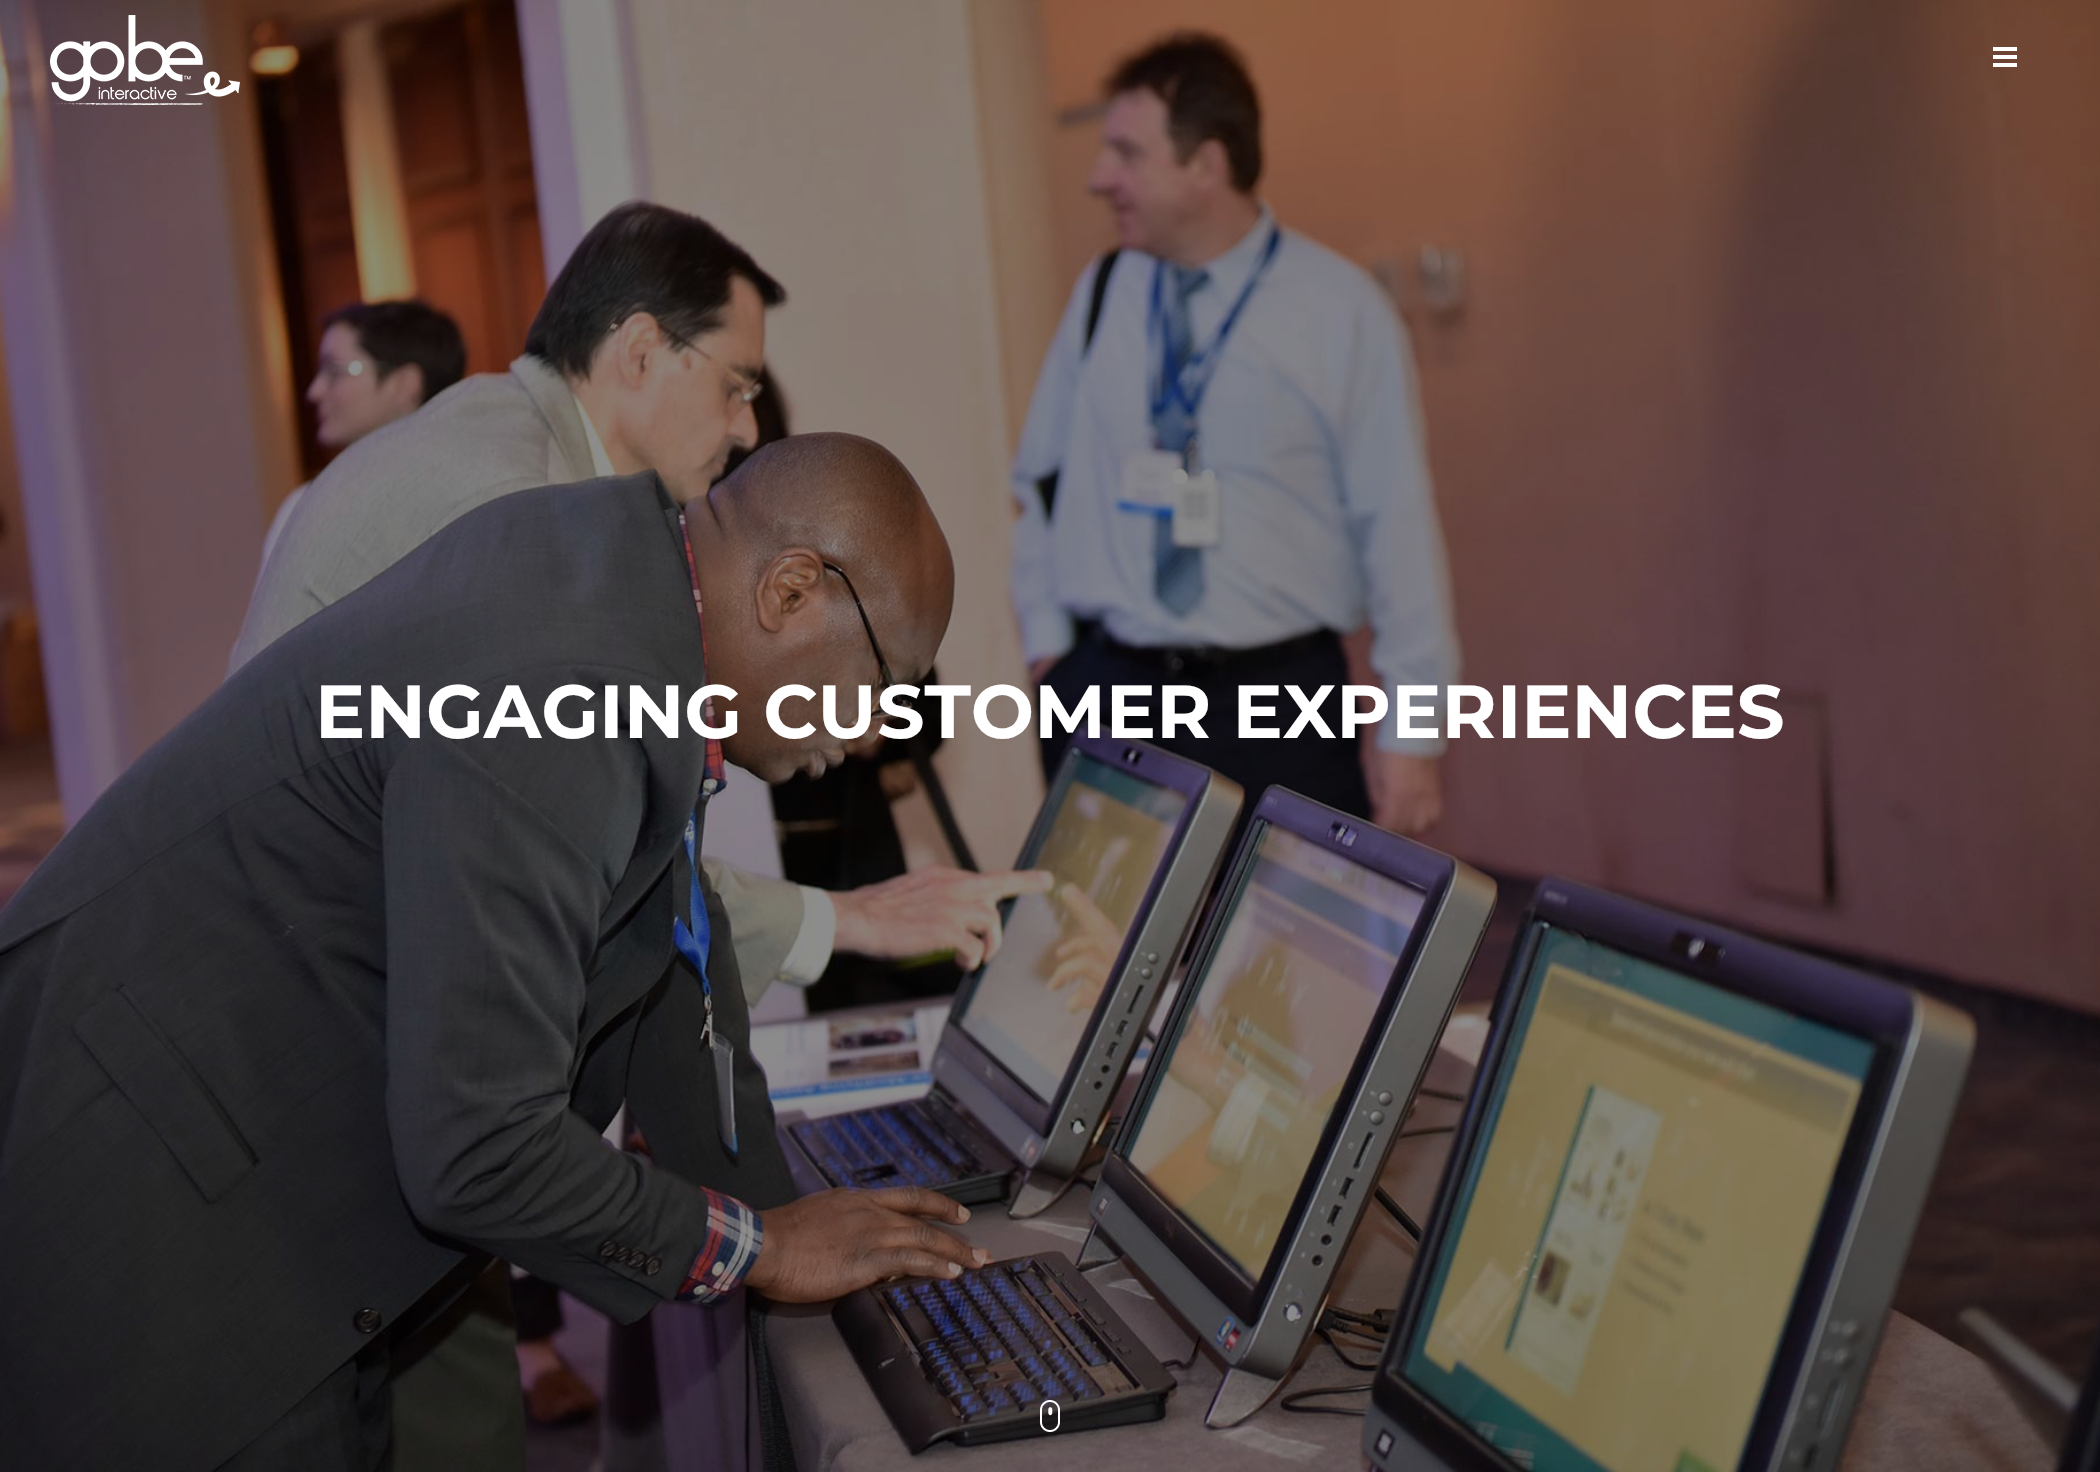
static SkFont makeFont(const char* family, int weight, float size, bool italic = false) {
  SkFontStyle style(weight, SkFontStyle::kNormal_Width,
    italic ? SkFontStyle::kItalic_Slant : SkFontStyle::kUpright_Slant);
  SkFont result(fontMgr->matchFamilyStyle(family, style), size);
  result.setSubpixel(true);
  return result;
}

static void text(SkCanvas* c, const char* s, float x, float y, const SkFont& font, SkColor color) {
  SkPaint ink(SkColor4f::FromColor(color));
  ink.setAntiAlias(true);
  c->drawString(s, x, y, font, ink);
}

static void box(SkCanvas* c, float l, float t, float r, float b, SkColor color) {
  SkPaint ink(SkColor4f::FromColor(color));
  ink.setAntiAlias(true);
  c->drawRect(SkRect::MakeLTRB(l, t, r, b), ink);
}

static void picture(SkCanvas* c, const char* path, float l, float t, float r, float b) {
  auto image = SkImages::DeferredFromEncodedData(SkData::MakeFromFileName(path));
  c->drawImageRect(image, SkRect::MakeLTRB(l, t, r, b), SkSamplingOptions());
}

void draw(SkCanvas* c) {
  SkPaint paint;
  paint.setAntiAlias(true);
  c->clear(0xffffffff);
  picture(c, "img_02.png", 0, 0, 2100, 1472);
  picture(c, "img_01.png", 50, 15, 240, 105);
  box(c, 1993, 47, 2017, 51, 0xffffffff);
  box(c, 1993, 55, 2017, 59, 0xffffffff);
  box(c, 1993, 63, 2017, 67, 0xffffffff);
  SkFont face1 = makeFont("Montserrat", 700, 75);
  text(c, "ENGAGING CUSTOMER EXPERIENCES", 315, 738, face1, 0xffffffff);
  picture(c, "img_03.png", 1040, 1400, 1060, 1432);
}
